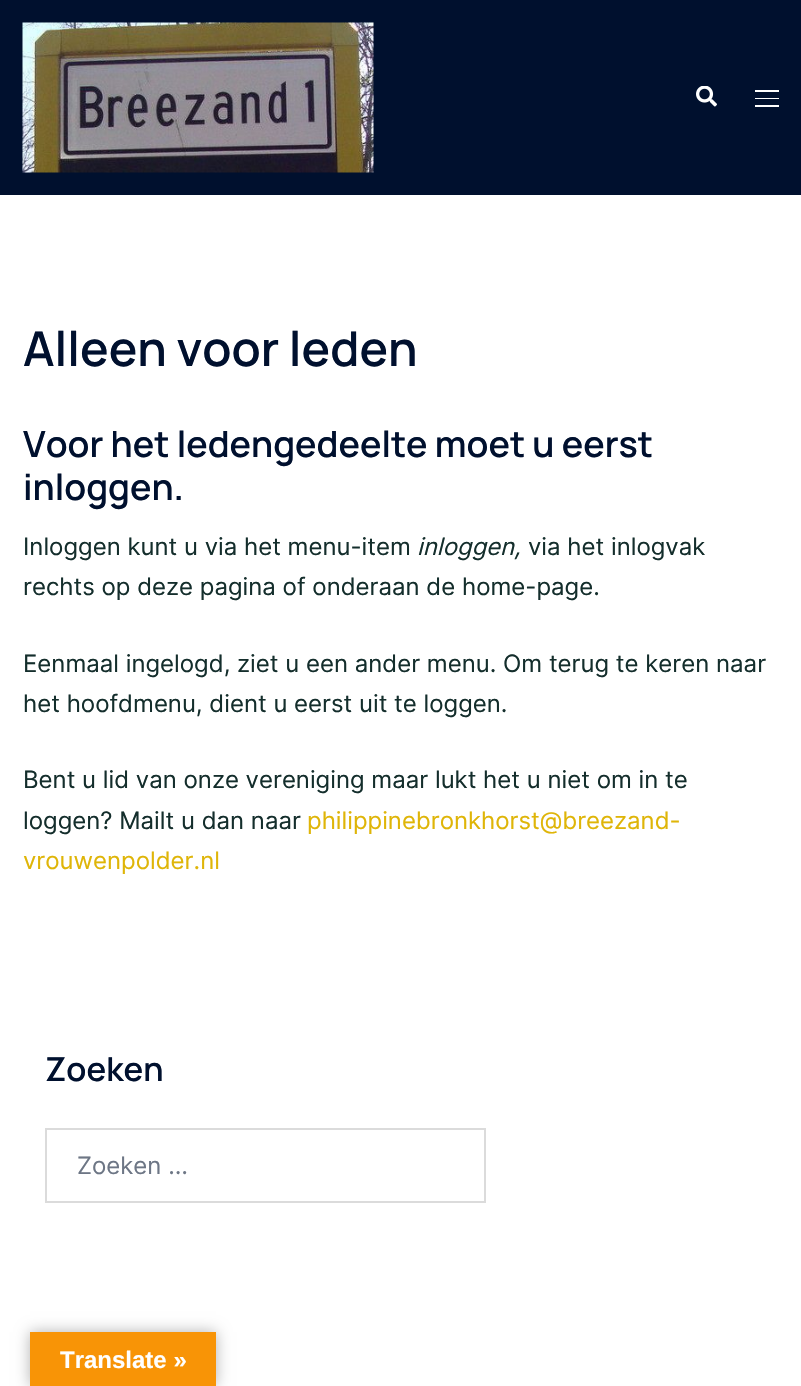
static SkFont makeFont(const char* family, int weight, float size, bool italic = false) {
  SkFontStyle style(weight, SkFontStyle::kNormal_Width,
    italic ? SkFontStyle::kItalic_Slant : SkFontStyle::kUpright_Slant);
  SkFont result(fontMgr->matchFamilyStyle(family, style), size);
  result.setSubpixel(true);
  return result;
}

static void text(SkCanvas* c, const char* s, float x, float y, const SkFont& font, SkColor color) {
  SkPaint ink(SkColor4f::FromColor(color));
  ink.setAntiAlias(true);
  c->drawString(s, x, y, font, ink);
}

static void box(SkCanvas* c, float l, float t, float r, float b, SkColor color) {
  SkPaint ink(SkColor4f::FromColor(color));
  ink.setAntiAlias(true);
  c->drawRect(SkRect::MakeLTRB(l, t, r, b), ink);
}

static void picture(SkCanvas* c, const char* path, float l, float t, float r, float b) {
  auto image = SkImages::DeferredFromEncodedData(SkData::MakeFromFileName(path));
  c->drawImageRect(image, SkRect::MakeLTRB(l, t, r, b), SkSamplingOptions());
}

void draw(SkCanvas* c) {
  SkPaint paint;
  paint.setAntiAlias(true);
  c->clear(0xffffffff);
  box(c, 0, 0, 801, 195, 0xff00102e);
  picture(c, "img_01.png", 22, 22, 374, 173);
  picture(c, "img_02.png", 696, 86, 717, 107);
  box(c, 755, 90, 779, 92, 0xffffffff);
  box(c, 755, 98, 779, 99, 0xffffffff);
  box(c, 755, 105, 779, 107, 0xffffffff);
  SkFont face1 = makeFont("Manrope", 200, 48);
  text(c, "Alleen voor leden", 23, 366, face1, 0xff00102e);
  SkFont face2 = makeFont("Manrope", 200, 36);
  text(c, "Voor het ledengedeelte moet u eerst", 23, 457, face2, 0xff00102e);
  text(c, "inloggen.", 23, 500, face2, 0xff00102e);
  SkFont face3 = makeFont("Inter", 400, 24);
  text(c, "Inloggen kunt u via het menu-item", 23, 555, face3, 0xff142e2c);
  SkFont face4 = makeFont("Inter", 400, 24, true);
  text(c, "inloggen,", 417, 555, face4, 0xff142e2c);
  text(c, "via het inlogvak", 528, 555, face3, 0xff142e2c);
  text(c, "rechts op deze pagina of onderaan de home-page.", 23, 595, face3, 0xff142e2c);
  text(c, "Eenmaal ingelogd, ziet u een ander menu. Om terug te keren naar", 23, 672, face3, 0xff142e2c);
  text(c, "het hoofdmenu, dient u eerst uit te loggen.", 23, 712, face3, 0xff142e2c);
  text(c, "Bent u lid van onze vereniging maar lukt het u niet om in te", 23, 788, face3, 0xff142e2c);
  text(c, "loggen? Mailt u dan naar", 23, 829, face3, 0xff142e2c);
  text(c, "philippinebronkhorst@breezand-", 307, 829, face3, 0xffdfb508);
  text(c, "vrouwenpolder.nl", 23, 869, face3, 0xffdfb508);
  SkFont face5 = makeFont("Manrope", 200, 33);
  text(c, "Zoeken", 45, 1081, face5, 0xff00102e);
  paint.setStyle(SkPaint::kStroke_Style);
  paint.setStrokeWidth(2);
  paint.setColor(0xffdbdbdb);
  c->drawRect(SkRect::MakeLTRB(46, 1129, 485, 1202), paint);
  text(c, "Zoeken …", 77, 1174, face3, 0xff6d7685);
  paint.setStyle(SkPaint::kFill_Style);
  paint.setColor(0x4d000000);
  paint.setMaskFilter(SkMaskFilter::MakeBlur(kNormal_SkBlurStyle, 7));
  c->drawRect(SkRect::MakeLTRB(30, 1332, 216, 1386), paint);
  paint.setMaskFilter(nullptr);
  box(c, 30, 1332, 216, 1386, 0xfff89406);
  SkFont face6 = makeFont("Liberation Sans", 700, 24);
  text(c, "Translate »", 60, 1368, face6, 0xffffffff);
}
